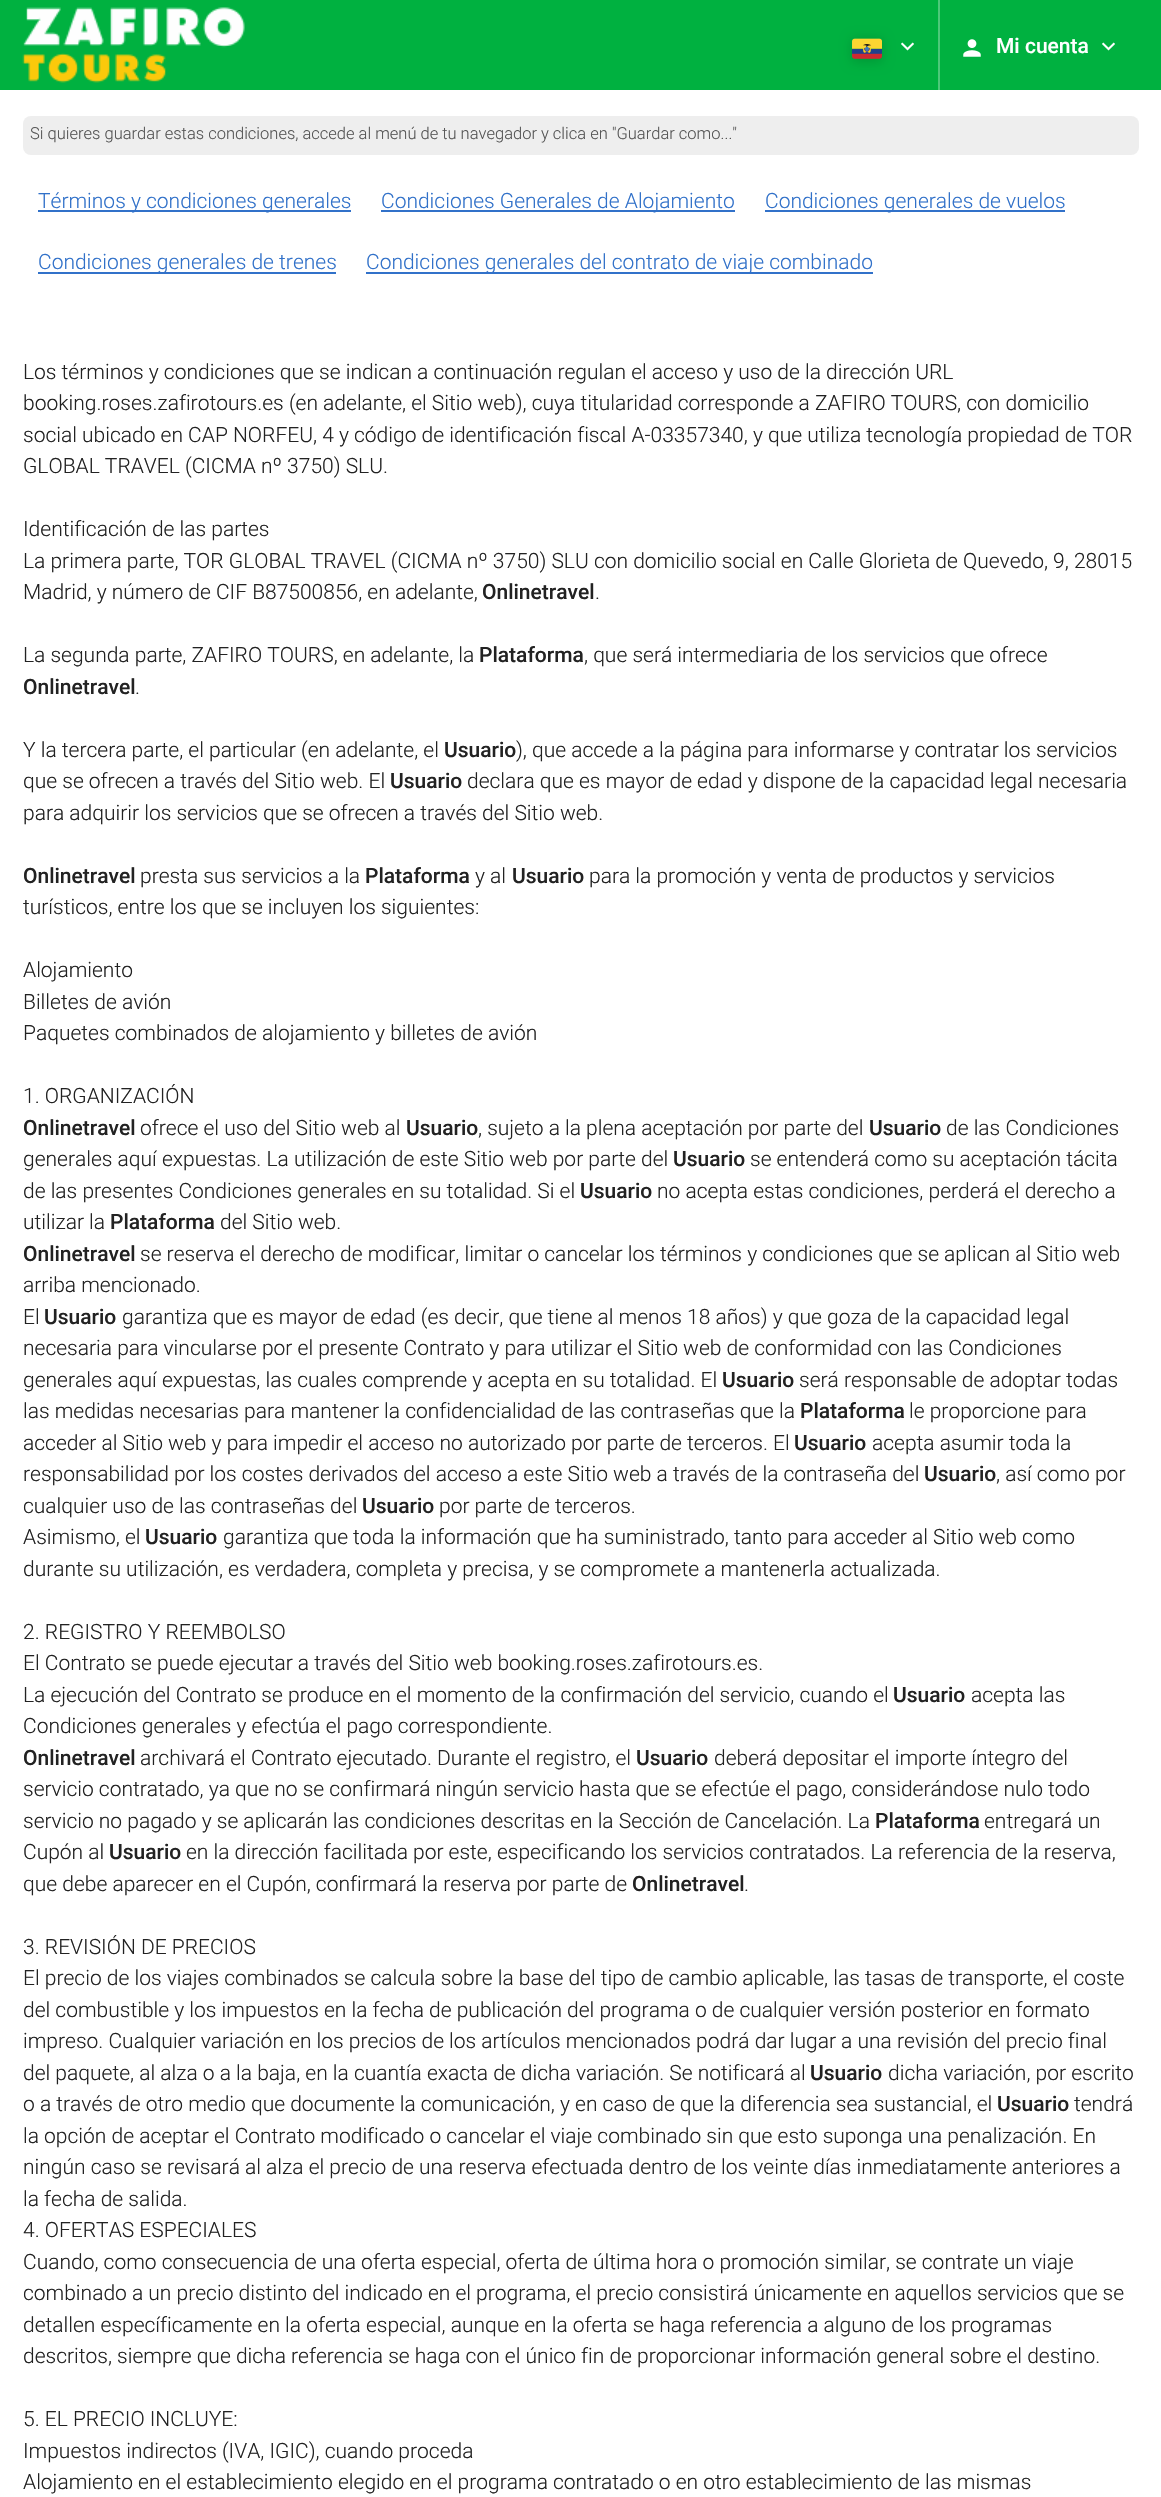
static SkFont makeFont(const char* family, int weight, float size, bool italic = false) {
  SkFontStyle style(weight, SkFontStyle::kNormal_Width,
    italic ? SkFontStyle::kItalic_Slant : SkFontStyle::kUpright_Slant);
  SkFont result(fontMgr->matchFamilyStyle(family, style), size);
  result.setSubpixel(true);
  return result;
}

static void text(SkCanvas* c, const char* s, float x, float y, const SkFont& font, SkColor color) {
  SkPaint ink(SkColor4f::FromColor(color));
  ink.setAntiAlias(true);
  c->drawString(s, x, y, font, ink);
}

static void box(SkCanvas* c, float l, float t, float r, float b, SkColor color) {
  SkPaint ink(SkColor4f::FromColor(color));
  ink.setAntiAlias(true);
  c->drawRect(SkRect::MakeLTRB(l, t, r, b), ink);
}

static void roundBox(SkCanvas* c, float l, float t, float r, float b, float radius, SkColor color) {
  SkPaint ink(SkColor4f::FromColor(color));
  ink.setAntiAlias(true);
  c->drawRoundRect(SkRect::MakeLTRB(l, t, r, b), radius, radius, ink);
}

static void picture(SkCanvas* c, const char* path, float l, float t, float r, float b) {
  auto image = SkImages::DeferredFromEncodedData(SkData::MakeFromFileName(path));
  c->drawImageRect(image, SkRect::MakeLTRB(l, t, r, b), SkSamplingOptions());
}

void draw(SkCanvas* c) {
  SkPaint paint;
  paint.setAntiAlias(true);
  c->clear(0xffffffff);
  box(c, 0, 0, 1161, 90, 0xff00b140);
  picture(c, "img_01.png", 22, 7, 245, 83);
  box(c, 938, 0, 940, 90, 0xff4dc879);
  paint.setColor(0x26000000);
  paint.setMaskFilter(SkMaskFilter::MakeBlur(kNormal_SkBlurStyle, 6));
  c->drawRect(SkRect::MakeLTRB(852, 39, 882, 62), paint);
  paint.setMaskFilter(nullptr);
  picture(c, "img_02.png", 852, 38, 882, 59);
  picture(c, "img_03.png", 901, 42, 914, 51);
  picture(c, "img_04.png", 963, 39, 981, 57);
  SkFont face1 = makeFont("Roboto", 500, 21);
  text(c, "Mi cuenta", 996, 53, face1, 0xffffffff);
  picture(c, "img_03.png", 1102, 42, 1115, 51);
  roundBox(c, 23, 116, 1139, 155, 8, 0xffeeeeee);
  SkFont face2 = makeFont("Roboto", 300, 16.5f);
  text(c, "Si quieres guardar estas condiciones, accede al menú de tu navegador y clica en \"Guardar como...\"", 30, 139, face2, 0xff555555);
  box(c, 38, 210, 351, 212, 0xff3171c9);
  SkFont face3 = makeFont("Roboto", 300, 21);
  text(c, "Términos y condiciones generales", 38, 208, face3, 0xff3171c9);
  box(c, 381, 210, 735, 212, 0xff3171c9);
  text(c, "Condiciones Generales de Alojamiento", 381, 208, face3, 0xff3171c9);
  box(c, 765, 210, 1065, 212, 0xff3171c9);
  text(c, "Condiciones generales de vuelos", 765, 208, face3, 0xff3171c9);
  box(c, 38, 272, 336, 274, 0xff3171c9);
  text(c, "Condiciones generales de trenes", 38, 269, face3, 0xff3171c9);
  box(c, 366, 272, 873, 274, 0xff3171c9);
  text(c, "Condiciones generales del contrato de viaje combinado", 366, 269, face3, 0xff3171c9);
  text(c, "Los términos y condiciones que se indican a continuación regulan el acceso y uso de la dirección URL", 23, 379, face3, 0xff222222);
  text(c, "booking.roses.zafirotours.es (en adelante, el Sitio web), cuya titularidad corresponde a ZAFIRO TOURS, con domicilio", 23, 410, face3, 0xff222222);
  text(c, "social ubicado en CAP NORFEU, 4 y código de identificación fiscal A-03357340, y que utiliza tecnología propiedad de TOR", 23, 442, face3, 0xff222222);
  text(c, "GLOBAL TRAVEL (CICMA nº 3750) SLU.", 23, 473, face3, 0xff222222);
  text(c, "Identificación de las partes", 23, 536, face3, 0xff222222);
  text(c, "La primera parte, TOR GLOBAL TRAVEL (CICMA nº 3750) SLU con domicilio social en Calle Glorieta de Quevedo, 9, 28015", 23, 568, face3, 0xff222222);
  text(c, "Madrid, y número de CIF B87500856, en adelante,", 23, 599, face3, 0xff222222);
  text(c, "Onlinetravel", 482, 599, face1, 0xff222222);
  text(c, ".", 595, 599, face3, 0xff222222);
  text(c, "La segunda parte, ZAFIRO TOURS, en adelante, la", 23, 662, face3, 0xff222222);
  text(c, "Plataforma", 479, 662, face1, 0xff222222);
  text(c, ", que será intermediaria de los servicios que ofrece", 584, 662, face3, 0xff222222);
  text(c, "Onlinetravel", 23, 694, face1, 0xff222222);
  text(c, ".", 135, 694, face3, 0xff222222);
  text(c, "Y la tercera parte, el particular (en adelante, el", 23, 757, face3, 0xff222222);
  text(c, "Usuario", 444, 757, face1, 0xff222222);
  text(c, "), que accede a la página para informarse y contratar los servicios", 516, 757, face3, 0xff222222);
  text(c, "que se ofrecen a través del Sitio web. El", 23, 788, face3, 0xff222222);
  text(c, "Usuario", 390, 788, face1, 0xff222222);
  text(c, "declara que es mayor de edad y dispone de la capacidad legal necesaria", 467, 788, face3, 0xff222222);
  text(c, "para adquirir los servicios que se ofrecen a través del Sitio web.", 23, 820, face3, 0xff222222);
  text(c, "Onlinetravel", 23, 883, face1, 0xff222222);
  text(c, "presta sus servicios a la", 140, 883, face3, 0xff222222);
  text(c, "Plataforma", 365, 883, face1, 0xff222222);
  text(c, "y al", 475, 883, face3, 0xff222222);
  text(c, "Usuario", 512, 883, face1, 0xff222222);
  text(c, "para la promoción y venta de productos y servicios", 589, 883, face3, 0xff222222);
  text(c, "turísticos, entre los que se incluyen los siguientes:", 23, 914, face3, 0xff222222);
  text(c, "Alojamiento", 23, 977, face3, 0xff222222);
  text(c, "Billetes de avión", 23, 1009, face3, 0xff222222);
  text(c, "Paquetes combinados de alojamiento y billetes de avión", 23, 1040, face3, 0xff222222);
  text(c, "1. ORGANIZACIÓN", 23, 1103, face3, 0xff222222);
  text(c, "Onlinetravel", 23, 1135, face1, 0xff222222);
  text(c, "ofrece el uso del Sitio web al", 140, 1135, face3, 0xff222222);
  text(c, "Usuario", 406, 1135, face1, 0xff222222);
  text(c, ", sujeto a la plena aceptación por parte del", 478, 1135, face3, 0xff222222);
  text(c, "Usuario", 869, 1135, face1, 0xff222222);
  text(c, "de las Condiciones", 946, 1135, face3, 0xff222222);
  text(c, "generales aquí expuestas. La utilización de este Sitio web por parte del", 23, 1166, face3, 0xff222222);
  text(c, "Usuario", 673, 1166, face1, 0xff222222);
  text(c, "se entenderá como su aceptación tácita", 750, 1166, face3, 0xff222222);
  text(c, "de las presentes Condiciones generales en su totalidad. Si el", 23, 1198, face3, 0xff222222);
  text(c, "Usuario", 580, 1198, face1, 0xff222222);
  text(c, "no acepta estas condiciones, perderá el derecho a", 657, 1198, face3, 0xff222222);
  text(c, "utilizar la", 23, 1229, face3, 0xff222222);
  text(c, "Plataforma", 110, 1229, face1, 0xff222222);
  text(c, "del Sitio web.", 220, 1229, face3, 0xff222222);
  text(c, "Onlinetravel", 23, 1261, face1, 0xff222222);
  text(c, "se reserva el derecho de modificar, limitar o cancelar los términos y condiciones que se aplican al Sitio web", 140, 1261, face3, 0xff222222);
  text(c, "arriba mencionado.", 23, 1292, face3, 0xff222222);
  text(c, "El", 23, 1324, face3, 0xff222222);
  text(c, "Usuario", 44, 1324, face1, 0xff222222);
  text(c, "garantiza que es mayor de edad (es decir, que tiene al menos 18 años) y que goza de la capacidad legal", 122, 1324, face3, 0xff222222);
  text(c, "necesaria para vincularse por el presente Contrato y para utilizar el Sitio web de conformidad con las Condiciones", 23, 1355, face3, 0xff222222);
  text(c, "generales aquí expuestas, las cuales comprende y acepta en su totalidad. El", 23, 1387, face3, 0xff222222);
  text(c, "Usuario", 722, 1387, face1, 0xff222222);
  text(c, "será responsable de adoptar todas", 799, 1387, face3, 0xff222222);
  text(c, "las medidas necesarias para mantener la confidencialidad de las contraseñas que la", 23, 1418, face3, 0xff222222);
  text(c, "Plataforma", 800, 1418, face1, 0xff222222);
  text(c, "le proporcione para", 909, 1418, face3, 0xff222222);
  text(c, "acceder al Sitio web y para impedir el acceso no autorizado por parte de terceros. El", 23, 1450, face3, 0xff222222);
  text(c, "Usuario", 794, 1450, face1, 0xff222222);
  text(c, "acepta asumir toda la", 872, 1450, face3, 0xff222222);
  text(c, "responsabilidad por los costes derivados del acceso a este Sitio web a través de la contraseña del", 23, 1481, face3, 0xff222222);
  text(c, "Usuario", 924, 1481, face1, 0xff222222);
  text(c, ", así como por", 996, 1481, face3, 0xff222222);
  text(c, "cualquier uso de las contraseñas del", 23, 1513, face3, 0xff222222);
  text(c, "Usuario", 362, 1513, face1, 0xff222222);
  text(c, "por parte de terceros.", 439, 1513, face3, 0xff222222);
  text(c, "Asimismo, el", 23, 1544, face3, 0xff222222);
  text(c, "Usuario", 145, 1544, face1, 0xff222222);
  text(c, "garantiza que toda la información que ha suministrado, tanto para acceder al Sitio web como", 223, 1544, face3, 0xff222222);
  text(c, "durante su utilización, es verdadera, completa y precisa, y se compromete a mantenerla actualizada.", 23, 1576, face3, 0xff222222);
  text(c, "2. REGISTRO Y REEMBOLSO", 23, 1639, face3, 0xff222222);
  text(c, "El Contrato se puede ejecutar a través del Sitio web booking.roses.zafirotours.es.", 23, 1670, face3, 0xff222222);
  text(c, "La ejecución del Contrato se produce en el momento de la confirmación del servicio, cuando el", 23, 1702, face3, 0xff222222);
  text(c, "Usuario", 893, 1702, face1, 0xff222222);
  text(c, "acepta las", 971, 1702, face3, 0xff222222);
  text(c, "Condiciones generales y efectúa el pago correspondiente.", 23, 1733, face3, 0xff222222);
  text(c, "Onlinetravel", 23, 1765, face1, 0xff222222);
  text(c, "archivará el Contrato ejecutado. Durante el registro, el", 140, 1765, face3, 0xff222222);
  text(c, "Usuario", 636, 1765, face1, 0xff222222);
  text(c, "deberá depositar el importe íntegro del", 714, 1765, face3, 0xff222222);
  text(c, "servicio contratado, ya que no se confirmará ningún servicio hasta que se efectúe el pago, considerándose nulo todo", 23, 1796, face3, 0xff222222);
  text(c, "servicio no pagado y se aplicarán las condiciones descritas en la Sección de Cancelación. La", 23, 1828, face3, 0xff222222);
  text(c, "Plataforma", 875, 1828, face1, 0xff222222);
  text(c, "entregará un", 984, 1828, face3, 0xff222222);
  text(c, "Cupón al", 23, 1859, face3, 0xff222222);
  text(c, "Usuario", 109, 1859, face1, 0xff222222);
  text(c, "en la dirección facilitada por este, especificando los servicios contratados. La referencia de la reserva,", 186, 1859, face3, 0xff222222);
  text(c, "que debe aparecer en el Cupón, confirmará la reserva por parte de", 23, 1891, face3, 0xff222222);
  text(c, "Onlinetravel", 632, 1891, face1, 0xff222222);
  text(c, ".", 744, 1891, face3, 0xff222222);
  text(c, "3. REVISIÓN DE PRECIOS", 23, 1954, face3, 0xff222222);
  text(c, "El precio de los viajes combinados se calcula sobre la base del tipo de cambio aplicable, las tasas de transporte, el coste", 23, 1985, face3, 0xff222222);
  text(c, "del combustible y los impuestos en la fecha de publicación del programa o de cualquier versión posterior en formato", 23, 2017, face3, 0xff222222);
  text(c, "impreso. Cualquier variación en los precios de los artículos mencionados podrá dar lugar a una revisión del precio final", 23, 2048, face3, 0xff222222);
  text(c, "del paquete, al alza o a la baja, en la cuantía exacta de dicha variación. Se notificará al", 23, 2080, face3, 0xff222222);
  text(c, "Usuario", 810, 2080, face1, 0xff222222);
  text(c, "dicha variación, por escrito", 888, 2080, face3, 0xff222222);
  text(c, "o a través de otro medio que documente la comunicación, y en caso de que la diferencia sea sustancial, el", 23, 2111, face3, 0xff222222);
  text(c, "Usuario", 997, 2111, face1, 0xff222222);
  text(c, "tendrá", 1074, 2111, face3, 0xff222222);
  text(c, "la opción de aceptar el Contrato modificado o cancelar el viaje combinado sin que esto suponga una penalización. En", 23, 2143, face3, 0xff222222);
  text(c, "ningún caso se revisará al alza el precio de una reserva efectuada dentro de los veinte días inmediatamente anteriores a", 23, 2174, face3, 0xff222222);
  text(c, "la fecha de salida.", 23, 2206, face3, 0xff222222);
  text(c, "4. OFERTAS ESPECIALES", 23, 2237, face3, 0xff222222);
  text(c, "Cuando, como consecuencia de una oferta especial, oferta de última hora o promoción similar, se contrate un viaje", 23, 2269, face3, 0xff222222);
  text(c, "combinado a un precio distinto del indicado en el programa, el precio consistirá únicamente en aquellos servicios que se", 23, 2300, face3, 0xff222222);
  text(c, "detallen específicamente en la oferta especial, aunque en la oferta se haga referencia a alguno de los programas", 23, 2332, face3, 0xff222222);
  text(c, "descritos, siempre que dicha referencia se haga con el único fin de proporcionar información general sobre el destino.", 23, 2363, face3, 0xff222222);
  text(c, "5. EL PRECIO INCLUYE:", 23, 2426, face3, 0xff222222);
  text(c, "Impuestos indirectos (IVA, IGIC), cuando proceda", 23, 2458, face3, 0xff222222);
  text(c, "Alojamiento en el establecimiento elegido en el programa contratado o en otro establecimiento de las mismas", 23, 2489, face3, 0xff222222);
}
